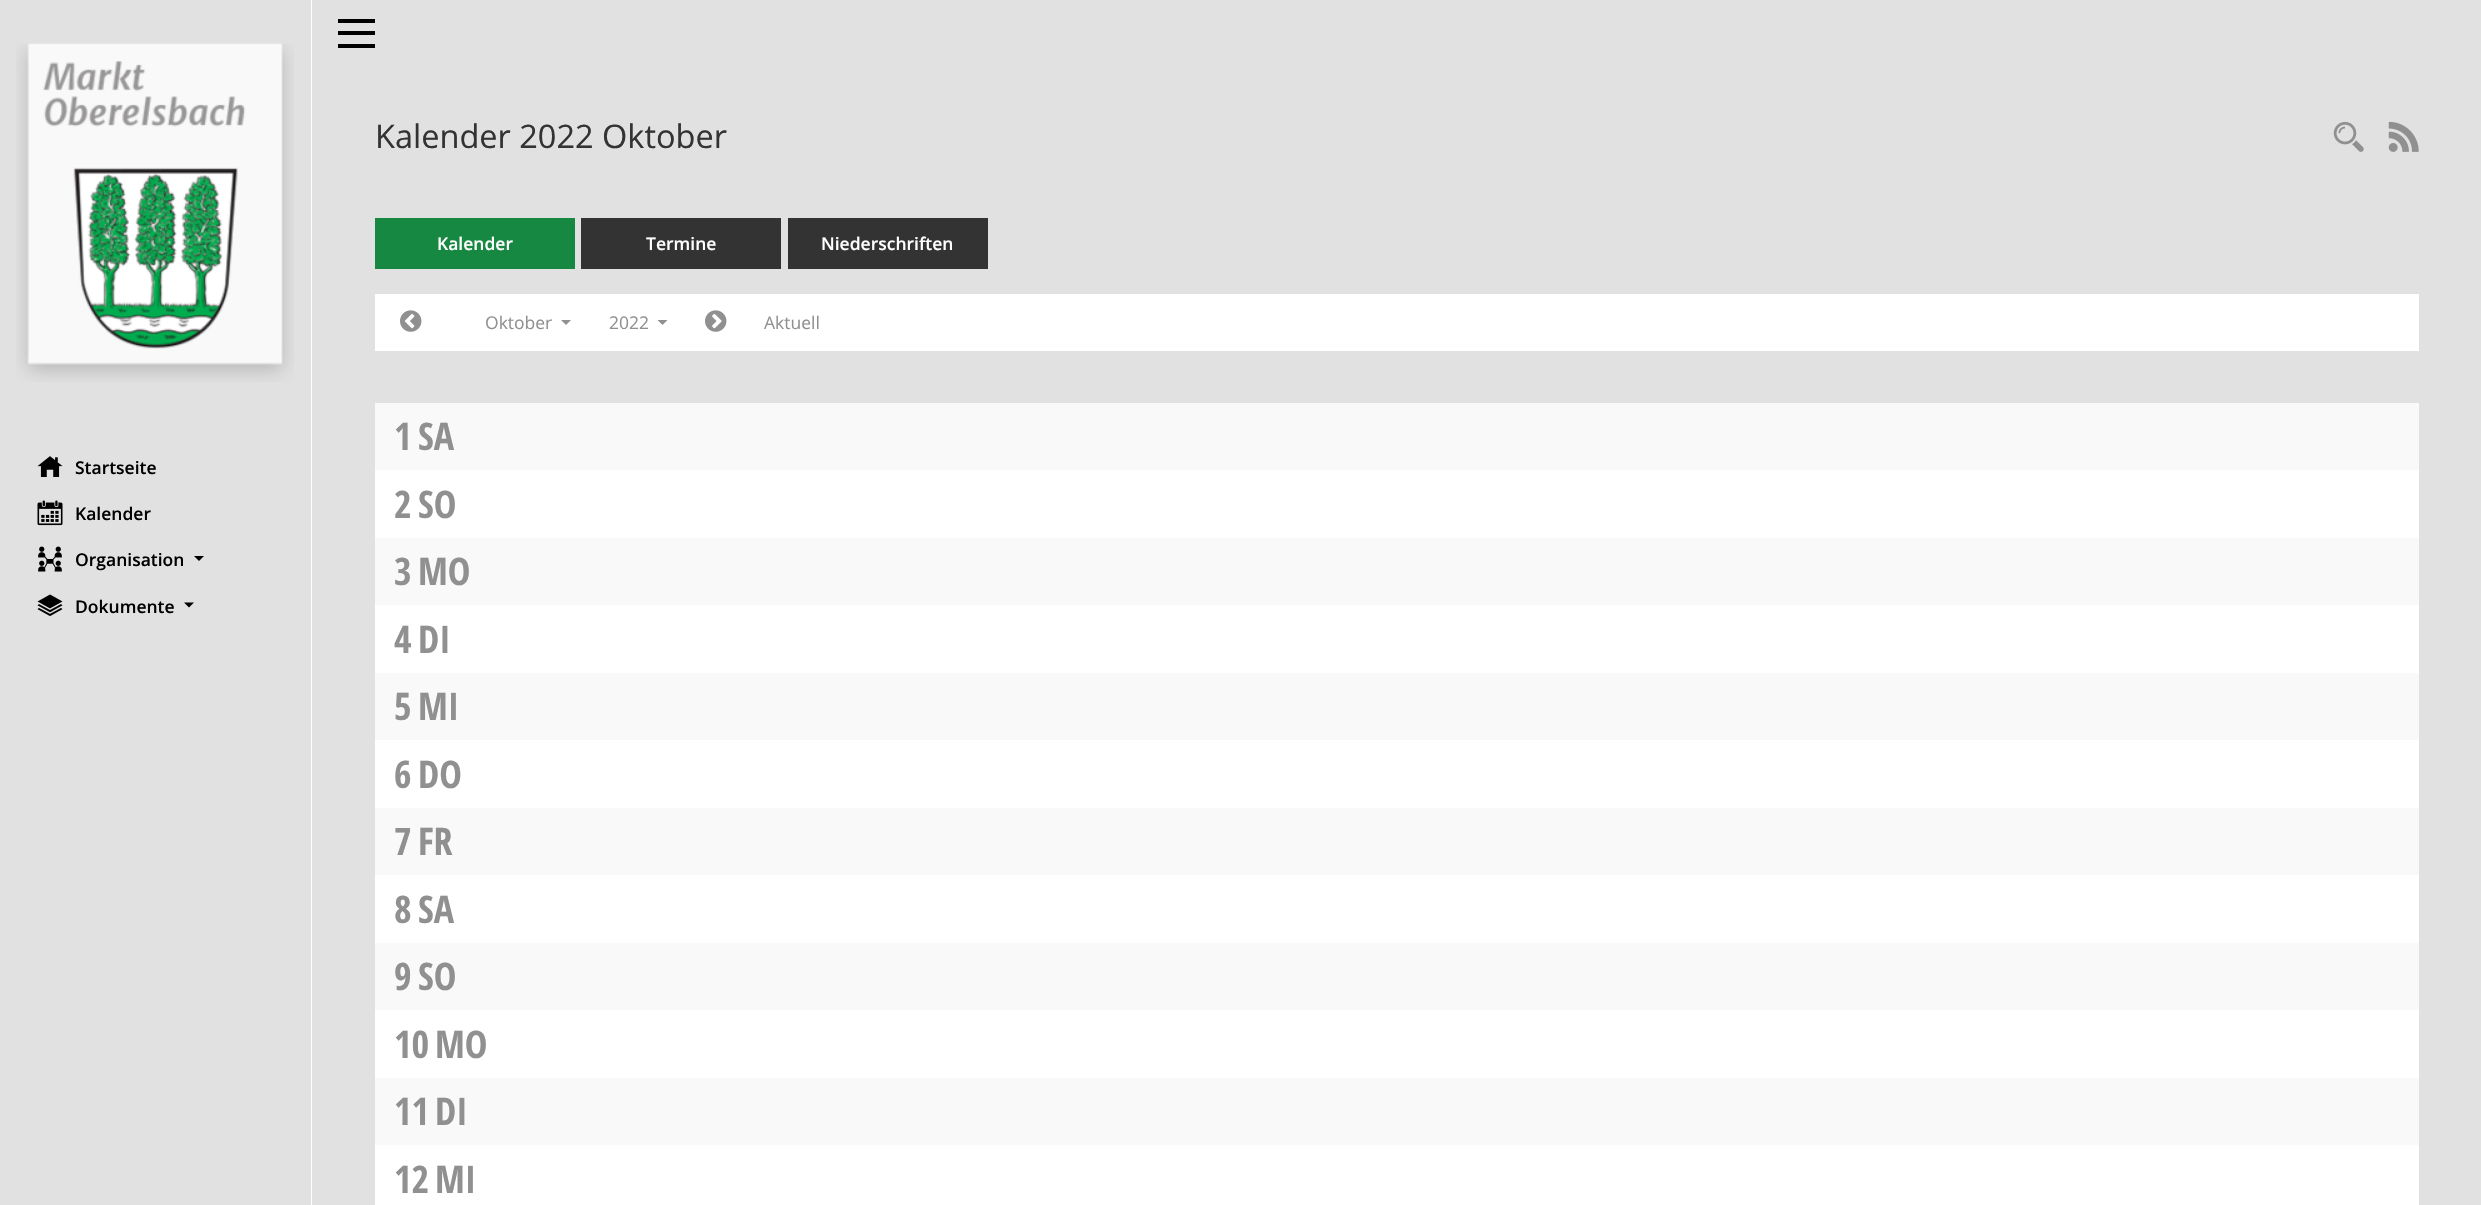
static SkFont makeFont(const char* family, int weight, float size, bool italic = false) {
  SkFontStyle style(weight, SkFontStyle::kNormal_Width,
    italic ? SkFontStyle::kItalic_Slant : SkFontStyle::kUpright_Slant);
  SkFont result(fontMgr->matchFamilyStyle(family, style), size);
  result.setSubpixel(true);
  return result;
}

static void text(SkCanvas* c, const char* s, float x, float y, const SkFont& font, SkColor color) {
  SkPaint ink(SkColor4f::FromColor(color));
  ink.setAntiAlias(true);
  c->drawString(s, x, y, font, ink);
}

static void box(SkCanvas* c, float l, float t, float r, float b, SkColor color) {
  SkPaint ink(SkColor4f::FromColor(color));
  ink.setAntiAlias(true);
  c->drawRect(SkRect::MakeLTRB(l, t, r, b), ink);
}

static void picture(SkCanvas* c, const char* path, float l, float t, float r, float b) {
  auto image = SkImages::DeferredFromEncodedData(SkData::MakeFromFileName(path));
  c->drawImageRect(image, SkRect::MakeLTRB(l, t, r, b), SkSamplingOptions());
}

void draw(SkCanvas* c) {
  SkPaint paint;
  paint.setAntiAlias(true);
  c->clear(0xffe1e1e1);
  box(c, 311, 0, 312, 1205, 0xffffffff);
  picture(c, "img_01.png", 16, 43, 294, 382);
  picture(c, "img_02.png", 37, 456, 63, 477);
  SkFont face1 = makeFont("Open Sans", 600, 17.5f);
  text(c, "Startseite", 75, 474, face1, 0xff000000);
  picture(c, "img_03.png", 37, 500, 63, 526);
  text(c, "Kalender", 75, 520, face1, 0xff000000);
  picture(c, "img_04.png", 38, 546, 62, 572);
  text(c, "Organisation", 75, 566, face1, 0xff000000);
  paint.setColor(0xff000000);
  c->drawPath(SkPathBuilder().moveTo(194, 556).lineTo(204, 556).lineTo(199, 561).close().detach(), paint);
  picture(c, "img_05.png", 37, 594, 63, 616);
  text(c, "Dokumente", 75, 613, face1, 0xff000000);
  c->drawPath(SkPathBuilder().moveTo(184, 602.5f).lineTo(194, 602.5f).lineTo(189, 607.5f).close().detach(), paint);
  box(c, 338, 19, 375, 23, 0xff000000);
  box(c, 338, 31, 375, 35, 0xff000000);
  box(c, 338, 44, 375, 48, 0xff000000);
  SkFont face2 = makeFont("Open Sans", 400, 32.5f);
  text(c, "Kalender 2022 Oktober", 375, 148, face2, 0xff333333);
  picture(c, "img_06.png", 2333, 121, 2364, 152);
  picture(c, "img_07.png", 2388, 121, 2419, 152);
  box(c, 575, 268, 2419, 269, 0xffdee2e6);
  box(c, 375, 218, 575, 269, 0xff178842);
  text(c, "Kalender", 437, 250, face1, 0xffffffff);
  box(c, 581, 218, 781, 269, 0xff333333);
  text(c, "Termine", 646, 250, face1, 0xffffffff);
  box(c, 788, 218, 988, 269, 0xff333333);
  text(c, "Niederschriften", 821, 250, face1, 0xffffffff);
  box(c, 375, 294, 2419, 351, 0xffffffff);
  picture(c, "img_08.png", 400, 310, 422, 332);
  SkFont face3 = makeFont("Open Sans", 400, 17.5f);
  text(c, "Oktober", 485, 329, face3, 0xff909090);
  paint.setColor(0xff909090);
  c->drawPath(SkPathBuilder().moveTo(561, 320).lineTo(571, 320).lineTo(566, 325).close().detach(), paint);
  text(c, "2022", 609, 329, face3, 0xff909090);
  c->drawPath(SkPathBuilder().moveTo(657.5f, 320).lineTo(667.5f, 320).lineTo(662.5f, 325).close().detach(), paint);
  picture(c, "img_09.png", 705, 310, 727, 332);
  text(c, "Aktuell", 764, 329, face3, 0xff909090);
  box(c, 375, 470, 2419, 1205, 0xffffffff);
  box(c, 375, 403, 2419, 470, 0xfff9f9f9);
  SkFont face4 = makeFont("Open Sans Condensed", 700, 38);
  text(c, "1", 394, 450, face4, 0xff909090);
  text(c, "SA", 418, 450, face4, 0xff909090);
  text(c, "2", 394, 518, face4, 0xff909090);
  text(c, "SO", 418, 518, face4, 0xff909090);
  box(c, 375, 538, 2419, 605, 0xfff9f9f9);
  text(c, "3", 394, 585, face4, 0xff909090);
  text(c, "MO", 418, 585, face4, 0xff909090);
  text(c, "4", 394, 653, face4, 0xff909090);
  text(c, "DI", 418, 653, face4, 0xff909090);
  box(c, 375, 673, 2419, 740, 0xfff9f9f9);
  text(c, "5", 394, 720, face4, 0xff909090);
  text(c, "MI", 418, 720, face4, 0xff909090);
  text(c, "6", 394, 788, face4, 0xff909090);
  text(c, "DO", 418, 788, face4, 0xff909090);
  box(c, 375, 808, 2419, 875, 0xfff9f9f9);
  text(c, "7", 394, 855, face4, 0xff909090);
  text(c, "FR", 418, 855, face4, 0xff909090);
  text(c, "8", 394, 923, face4, 0xff909090);
  text(c, "SA", 418, 923, face4, 0xff909090);
  box(c, 375, 943, 2419, 1010, 0xfff9f9f9);
  text(c, "9", 394, 990, face4, 0xff909090);
  text(c, "SO", 418, 990, face4, 0xff909090);
  text(c, "10", 394, 1058, face4, 0xff909090);
  text(c, "MO", 435, 1058, face4, 0xff909090);
  box(c, 375, 1078, 2419, 1145, 0xfff9f9f9);
  text(c, "11", 394, 1125, face4, 0xff909090);
  text(c, "DI", 435, 1125, face4, 0xff909090);
  text(c, "12", 394, 1193, face4, 0xff909090);
  text(c, "MI", 435, 1193, face4, 0xff909090);
}
